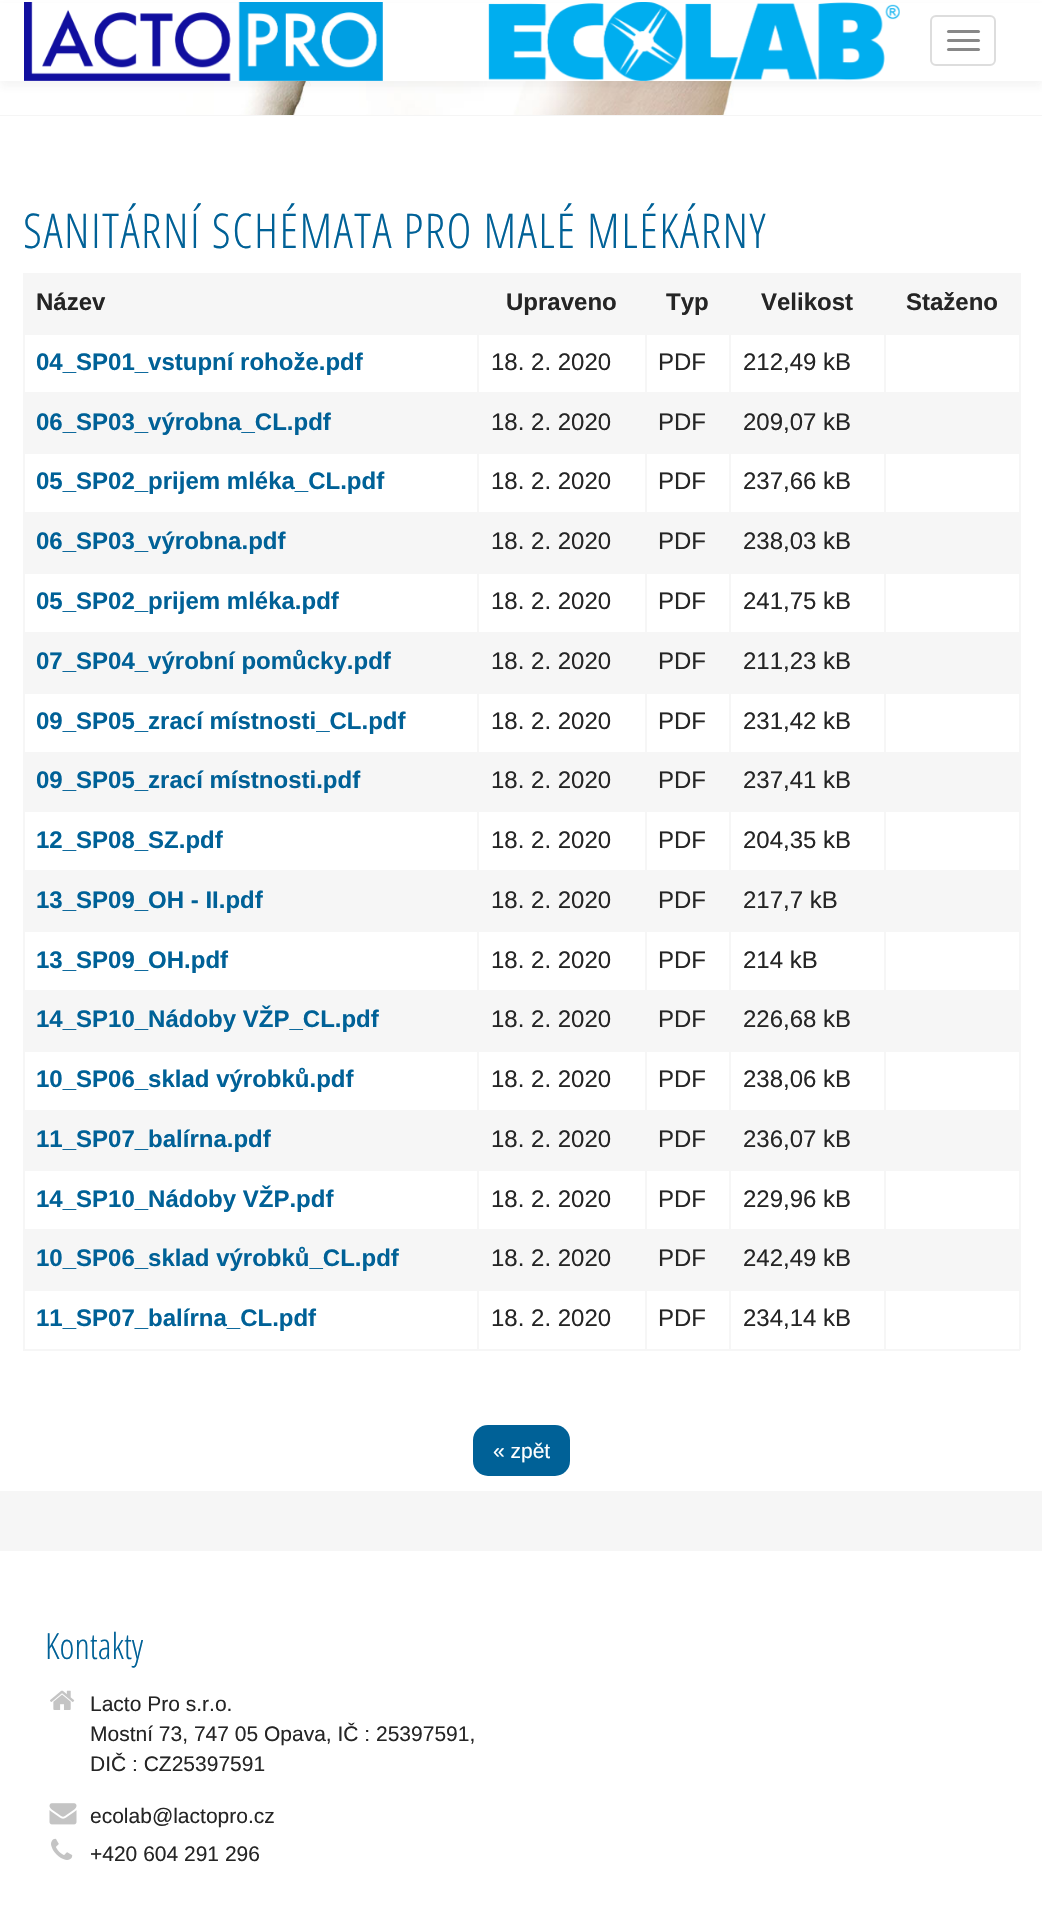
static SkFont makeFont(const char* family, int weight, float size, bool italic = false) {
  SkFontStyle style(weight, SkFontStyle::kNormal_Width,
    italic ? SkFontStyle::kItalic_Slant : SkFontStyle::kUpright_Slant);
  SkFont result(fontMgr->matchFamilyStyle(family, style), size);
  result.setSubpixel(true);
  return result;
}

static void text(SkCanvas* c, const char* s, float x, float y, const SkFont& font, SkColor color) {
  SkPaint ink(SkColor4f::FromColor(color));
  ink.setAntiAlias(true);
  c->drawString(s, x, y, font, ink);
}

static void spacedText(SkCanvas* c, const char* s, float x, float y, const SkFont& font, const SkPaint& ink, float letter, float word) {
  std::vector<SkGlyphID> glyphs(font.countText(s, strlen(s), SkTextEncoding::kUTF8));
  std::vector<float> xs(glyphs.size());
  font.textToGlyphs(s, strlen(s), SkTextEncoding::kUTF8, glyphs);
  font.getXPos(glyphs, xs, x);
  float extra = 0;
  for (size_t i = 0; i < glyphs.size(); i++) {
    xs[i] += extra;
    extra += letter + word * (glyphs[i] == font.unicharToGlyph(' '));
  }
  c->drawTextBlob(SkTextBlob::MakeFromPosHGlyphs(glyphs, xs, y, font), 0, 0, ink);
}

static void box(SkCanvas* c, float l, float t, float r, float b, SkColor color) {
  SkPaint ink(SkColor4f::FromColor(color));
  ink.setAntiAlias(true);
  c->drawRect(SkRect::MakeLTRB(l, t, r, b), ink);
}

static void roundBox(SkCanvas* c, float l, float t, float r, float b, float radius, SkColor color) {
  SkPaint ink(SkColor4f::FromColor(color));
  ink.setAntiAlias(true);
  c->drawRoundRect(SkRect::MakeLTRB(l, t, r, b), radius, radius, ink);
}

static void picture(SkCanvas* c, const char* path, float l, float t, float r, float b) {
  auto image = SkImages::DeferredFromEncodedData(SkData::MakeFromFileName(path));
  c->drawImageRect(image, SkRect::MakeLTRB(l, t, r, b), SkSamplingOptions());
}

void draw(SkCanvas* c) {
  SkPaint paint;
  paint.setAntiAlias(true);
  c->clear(0xffffffff);
  picture(c, "img_02.png", 0, 81, 1042, 115);
  paint.setColor(0x0d323232);
  paint.setMaskFilter(SkMaskFilter::MakeBlur(kNormal_SkBlurStyle, 4));
  c->drawRect(SkRect::MakeLTRB(0, 6, 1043, 87), paint);
  paint.setMaskFilter(nullptr);
  box(c, 0, 3, 1042, 81, 0xffffffff);
  picture(c, "img_01.png", 24, 2, 900, 81);
  paint.setStyle(SkPaint::kStroke_Style);
  paint.setStrokeWidth(2);
  paint.setColor(0xffdddddd);
  c->drawRoundRect(SkRect::MakeLTRB(931, 16, 995, 65), 5, 5, paint);
  roundBox(c, 947, 30, 980, 33, 1.5f, 0xff888888);
  roundBox(c, 947, 39, 980, 42, 1.5f, 0xff888888);
  roundBox(c, 947, 48, 980, 51, 1.5f, 0xff888888);
  box(c, 0, 1491, 1042, 1551, 0xfff6f6f6);
  box(c, 0, 115, 1042, 116, 0xfff5f5f5);
  SkFont face1 = makeFont("Open Sans", 300, 48);
  paint.setStyle(SkPaint::kFill_Style);
  paint.setColor(0xff006197);
  spacedText(c, "SANITÁRNÍ SCHÉMATA PRO MALÉ MLÉKÁRNY", 23, 248, face1, paint, 1.5f, 0);
  box(c, 23, 273, 1020, 275, 0xfff6f6f6);
  box(c, 1019, 273, 1021, 1350, 0xfff6f6f6);
  box(c, 23, 1349, 1020, 1351, 0xfff6f6f6);
  box(c, 23, 273, 25, 1350, 0xfff6f6f6);
  box(c, 25, 275, 1019, 333, 0xfff6f6f6);
  SkFont face2 = makeFont("Liberation Sans", 700, 24);
  text(c, "Název", 36, 310, face2, 0xff252525);
  text(c, "Upraveno", 506, 310, face2, 0xff252525);
  text(c, "Typ", 666, 310, face2, 0xff252525);
  text(c, "Velikost", 761, 310, face2, 0xff252525);
  box(c, 729, 333, 885, 335, 0xfff6f6f6);
  box(c, 23, 392, 1020, 394, 0xfff6f6f6);
  box(c, 884, 333, 886, 393, 0xfff6f6f6);
  box(c, 884, 333, 1020, 335, 0xfff6f6f6);
  text(c, "Staženo", 906, 310, face2, 0xff252525);
  box(c, 729, 333, 731, 393, 0xfff6f6f6);
  box(c, 645, 333, 731, 335, 0xfff6f6f6);
  box(c, 645, 333, 647, 393, 0xfff6f6f6);
  box(c, 477, 333, 647, 335, 0xfff6f6f6);
  box(c, 477, 333, 479, 393, 0xfff6f6f6);
  box(c, 23, 333, 479, 335, 0xfff6f6f6);
  text(c, "04_SP01_vstupní rohože.pdf", 36, 370, face2, 0xff006197);
  SkFont face3 = makeFont("Liberation Sans", 400, 24);
  text(c, "18. 2. 2020", 491, 370, face3, 0xff252525);
  text(c, "PDF", 658, 370, face3, 0xff252525);
  text(c, "212,49 kB", 743, 370, face3, 0xff252525);
  box(c, 25, 394, 1019, 452, 0xfff6f6f6);
  box(c, 23, 452, 1020, 454, 0xfff6f6f6);
  text(c, "06_SP03_výrobna_CL.pdf", 36, 430, face2, 0xff006197);
  text(c, "18. 2. 2020", 491, 430, face3, 0xff252525);
  text(c, "PDF", 658, 430, face3, 0xff252525);
  text(c, "209,07 kB", 743, 430, face3, 0xff252525);
  box(c, 23, 512, 1020, 514, 0xfff6f6f6);
  text(c, "05_SP02_prijem mléka_CL.pdf", 36, 489, face2, 0xff006197);
  box(c, 477, 452, 479, 513, 0xfff6f6f6);
  text(c, "18. 2. 2020", 491, 489, face3, 0xff252525);
  box(c, 645, 452, 647, 513, 0xfff6f6f6);
  text(c, "PDF", 658, 489, face3, 0xff252525);
  box(c, 884, 452, 886, 513, 0xfff6f6f6);
  box(c, 729, 452, 731, 513, 0xfff6f6f6);
  text(c, "237,66 kB", 743, 489, face3, 0xff252525);
  box(c, 25, 514, 1019, 572, 0xfff6f6f6);
  box(c, 23, 572, 1020, 574, 0xfff6f6f6);
  text(c, "06_SP03_výrobna.pdf", 36, 549, face2, 0xff006197);
  text(c, "18. 2. 2020", 491, 549, face3, 0xff252525);
  text(c, "PDF", 658, 549, face3, 0xff252525);
  text(c, "238,03 kB", 743, 549, face3, 0xff252525);
  text(c, "05_SP02_prijem mléka.pdf", 36, 609, face2, 0xff006197);
  box(c, 25, 632, 1019, 692, 0xfff6f6f6);
  box(c, 477, 572, 479, 633, 0xfff6f6f6);
  text(c, "18. 2. 2020", 491, 609, face3, 0xff252525);
  box(c, 645, 572, 647, 633, 0xfff6f6f6);
  text(c, "PDF", 658, 609, face3, 0xff252525);
  box(c, 884, 572, 886, 633, 0xfff6f6f6);
  box(c, 729, 572, 731, 633, 0xfff6f6f6);
  text(c, "241,75 kB", 743, 609, face3, 0xff252525);
  box(c, 23, 692, 1020, 694, 0xfff6f6f6);
  text(c, "07_SP04_výrobní pomůcky.pdf", 36, 669, face2, 0xff006197);
  text(c, "18. 2. 2020", 491, 669, face3, 0xff252525);
  text(c, "PDF", 658, 669, face3, 0xff252525);
  text(c, "211,23 kB", 743, 669, face3, 0xff252525);
  text(c, "09_SP05_zrací místnosti_CL.pdf", 36, 729, face2, 0xff006197);
  box(c, 25, 752, 1019, 812, 0xfff6f6f6);
  box(c, 477, 692, 479, 753, 0xfff6f6f6);
  text(c, "18. 2. 2020", 491, 729, face3, 0xff252525);
  box(c, 645, 692, 647, 753, 0xfff6f6f6);
  text(c, "PDF", 658, 729, face3, 0xff252525);
  box(c, 884, 692, 886, 753, 0xfff6f6f6);
  box(c, 729, 692, 731, 753, 0xfff6f6f6);
  text(c, "231,42 kB", 743, 729, face3, 0xff252525);
  text(c, "09_SP05_zrací místnosti.pdf", 36, 788, face2, 0xff006197);
  text(c, "18. 2. 2020", 491, 788, face3, 0xff252525);
  text(c, "PDF", 658, 788, face3, 0xff252525);
  text(c, "237,41 kB", 743, 788, face3, 0xff252525);
  box(c, 23, 870, 1020, 872, 0xfff6f6f6);
  text(c, "12_SP08_SZ.pdf", 36, 848, face2, 0xff006197);
  box(c, 477, 810, 479, 872, 0xfff6f6f6);
  text(c, "18. 2. 2020", 491, 848, face3, 0xff252525);
  box(c, 645, 810, 647, 872, 0xfff6f6f6);
  text(c, "PDF", 658, 848, face3, 0xff252525);
  box(c, 884, 810, 886, 872, 0xfff6f6f6);
  box(c, 729, 810, 731, 872, 0xfff6f6f6);
  text(c, "204,35 kB", 743, 848, face3, 0xff252525);
  box(c, 25, 872, 1019, 932, 0xfff6f6f6);
  text(c, "13_SP09_OH - II.pdf", 36, 908, face2, 0xff006197);
  text(c, "18. 2. 2020", 491, 908, face3, 0xff252525);
  text(c, "PDF", 658, 908, face3, 0xff252525);
  text(c, "217,7 kB", 743, 908, face3, 0xff252525);
  text(c, "13_SP09_OH.pdf", 36, 968, face2, 0xff006197);
  box(c, 25, 990, 1019, 1050, 0xfff6f6f6);
  box(c, 477, 930, 479, 992, 0xfff6f6f6);
  text(c, "18. 2. 2020", 491, 968, face3, 0xff252525);
  box(c, 645, 930, 647, 992, 0xfff6f6f6);
  text(c, "PDF", 658, 968, face3, 0xff252525);
  box(c, 884, 930, 886, 992, 0xfff6f6f6);
  box(c, 729, 930, 731, 992, 0xfff6f6f6);
  text(c, "214 kB", 743, 968, face3, 0xff252525);
  box(c, 23, 1050, 1020, 1052, 0xfff6f6f6);
  text(c, "14_SP10_Nádoby VŽP_CL.pdf", 36, 1027, face2, 0xff006197);
  text(c, "18. 2. 2020", 491, 1027, face3, 0xff252525);
  text(c, "PDF", 658, 1027, face3, 0xff252525);
  text(c, "226,68 kB", 743, 1027, face3, 0xff252525);
  text(c, "10_SP06_sklad výrobků.pdf", 36, 1087, face2, 0xff006197);
  box(c, 25, 1110, 1019, 1169, 0xfff6f6f6);
  box(c, 477, 1050, 479, 1112, 0xfff6f6f6);
  text(c, "18. 2. 2020", 491, 1087, face3, 0xff252525);
  box(c, 645, 1050, 647, 1112, 0xfff6f6f6);
  text(c, "PDF", 658, 1087, face3, 0xff252525);
  box(c, 884, 1050, 886, 1112, 0xfff6f6f6);
  box(c, 729, 1050, 731, 1112, 0xfff6f6f6);
  text(c, "238,06 kB", 743, 1087, face3, 0xff252525);
  box(c, 23, 1169, 1020, 1171, 0xfff6f6f6);
  text(c, "11_SP07_balírna.pdf", 36, 1147, face2, 0xff006197);
  text(c, "18. 2. 2020", 491, 1147, face3, 0xff252525);
  text(c, "PDF", 658, 1147, face3, 0xff252525);
  text(c, "236,07 kB", 743, 1147, face3, 0xff252525);
  box(c, 23, 1229, 1020, 1231, 0xfff6f6f6);
  text(c, "14_SP10_Nádoby VŽP.pdf", 36, 1207, face2, 0xff006197);
  box(c, 477, 1169, 479, 1230, 0xfff6f6f6);
  text(c, "18. 2. 2020", 491, 1207, face3, 0xff252525);
  box(c, 645, 1169, 647, 1230, 0xfff6f6f6);
  text(c, "PDF", 658, 1207, face3, 0xff252525);
  box(c, 884, 1169, 886, 1230, 0xfff6f6f6);
  box(c, 729, 1169, 731, 1230, 0xfff6f6f6);
  text(c, "229,96 kB", 743, 1207, face3, 0xff252525);
  box(c, 25, 1231, 1019, 1289, 0xfff6f6f6);
  box(c, 23, 1289, 1020, 1291, 0xfff6f6f6);
  text(c, "10_SP06_sklad výrobků_CL.pdf", 36, 1266, face2, 0xff006197);
  text(c, "18. 2. 2020", 491, 1266, face3, 0xff252525);
  text(c, "PDF", 658, 1266, face3, 0xff252525);
  text(c, "242,49 kB", 743, 1266, face3, 0xff252525);
  text(c, "11_SP07_balírna_CL.pdf", 36, 1326, face2, 0xff006197);
  box(c, 477, 1289, 479, 1350, 0xfff6f6f6);
  text(c, "18. 2. 2020", 491, 1326, face3, 0xff252525);
  box(c, 645, 1289, 647, 1350, 0xfff6f6f6);
  text(c, "PDF", 658, 1326, face3, 0xff252525);
  box(c, 884, 1289, 886, 1350, 0xfff6f6f6);
  box(c, 729, 1289, 731, 1350, 0xfff6f6f6);
  text(c, "234,14 kB", 743, 1326, face3, 0xff252525);
  roundBox(c, 473, 1425, 570, 1476, 15, 0xff006197);
  SkFont face4 = makeFont("Liberation Sans", 400, 21);
  text(c, "« zpět", 493, 1458, face4, 0xffffffff);
  SkFont face5 = makeFont("Open Sans", 300, 36);
  text(c, "Kontakty", 45, 1659, face5, 0xff006197);
  picture(c, "img_03.png", 50, 1690, 75, 1710);
  text(c, "Lacto Pro s.r.o.", 90, 1711, face4, 0xff252525);
  text(c, "Mostní 73, 747 05 Opava, IČ : 25397591,", 90, 1741, face4, 0xff252525);
  text(c, "DIČ : CZ25397591", 90, 1771, face4, 0xff252525);
  picture(c, "img_04.png", 49, 1803, 77, 1825);
  text(c, "ecolab@lactopro.cz", 90, 1823, face4, 0xff252525);
  picture(c, "img_05.png", 51, 1838, 73, 1860);
  text(c, "+420 604 291 296", 90, 1861, face4, 0xff252525);
}
